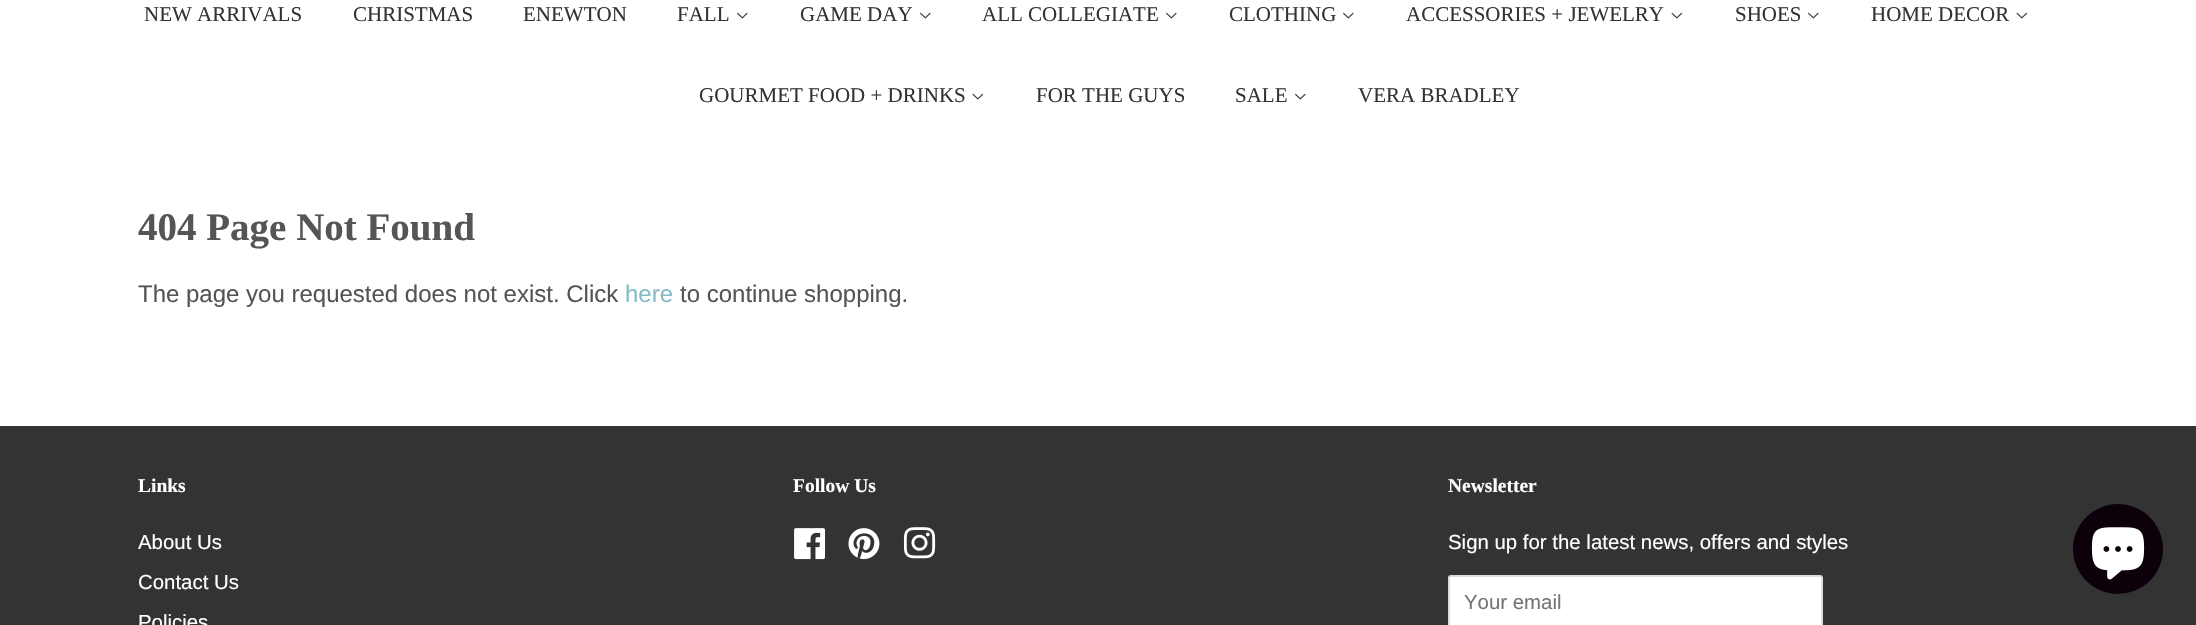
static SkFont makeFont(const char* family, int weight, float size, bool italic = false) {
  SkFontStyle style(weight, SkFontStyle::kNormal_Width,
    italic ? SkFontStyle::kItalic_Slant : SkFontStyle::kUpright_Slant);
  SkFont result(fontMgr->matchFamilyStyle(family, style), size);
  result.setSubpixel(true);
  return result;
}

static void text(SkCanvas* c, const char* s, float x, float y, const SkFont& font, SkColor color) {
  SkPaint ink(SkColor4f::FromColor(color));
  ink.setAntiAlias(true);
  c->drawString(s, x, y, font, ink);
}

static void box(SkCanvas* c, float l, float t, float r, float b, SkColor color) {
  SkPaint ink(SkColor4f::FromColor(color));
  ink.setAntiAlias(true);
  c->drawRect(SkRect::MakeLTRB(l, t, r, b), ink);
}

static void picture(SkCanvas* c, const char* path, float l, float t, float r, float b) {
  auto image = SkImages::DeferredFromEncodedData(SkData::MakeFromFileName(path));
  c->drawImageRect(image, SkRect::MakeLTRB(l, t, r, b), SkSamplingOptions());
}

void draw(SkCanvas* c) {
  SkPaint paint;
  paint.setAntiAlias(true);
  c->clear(0xffffffff);
  SkFont face1 = makeFont("Liberation Serif", 400, 21);
  text(c, "NEW ARRIVALS", 144, 21, face1, 0xff333333);
  text(c, "CHRISTMAS", 353, 21, face1, 0xff333333);
  text(c, "ENEWTON", 523, 21, face1, 0xff333333);
  text(c, "FALL", 677, 21, face1, 0xff333333);
  picture(c, "img_01.png", 737, 12, 748, 19);
  text(c, "GAME DAY", 800, 21, face1, 0xff333333);
  picture(c, "img_01.png", 920, 12, 931, 19);
  text(c, "ALL COLLEGIATE", 982, 21, face1, 0xff333333);
  picture(c, "img_01.png", 1166, 12, 1177, 19);
  text(c, "CLOTHING", 1229, 21, face1, 0xff333333);
  picture(c, "img_01.png", 1343, 12, 1354, 19);
  text(c, "ACCESSORIES + JEWELRY", 1406, 21, face1, 0xff333333);
  picture(c, "img_02.png", 1671, 12, 1682, 19);
  text(c, "SHOES", 1735, 21, face1, 0xff333333);
  picture(c, "img_01.png", 1808, 12, 1819, 19);
  text(c, "HOME DECOR", 1871, 21, face1, 0xff333333);
  picture(c, "img_02.png", 2016, 12, 2027, 19);
  text(c, "GOURMET FOOD + DRINKS", 699, 102, face1, 0xff333333);
  picture(c, "img_02.png", 972, 93, 983, 100);
  text(c, "FOR THE GUYS", 1036, 102, face1, 0xff333333);
  text(c, "SALE", 1235, 102, face1, 0xff333333);
  picture(c, "img_01.png", 1295, 93, 1306, 100);
  text(c, "VERA BRADLEY", 1358, 102, face1, 0xff333333);
  SkFont face2 = makeFont("Liberation Serif", 700, 39);
  text(c, "404 Page Not Found", 138, 240, face2, 0xff555555);
  SkFont face3 = makeFont("Liberation Sans", 400, 24);
  text(c, "The page you requested does not exist. Click", 138, 302, face3, 0xff555555);
  text(c, "here", 625, 302, face3, 0xff84bcc7);
  text(c, "to continue shopping.", 680, 302, face3, 0xff555555);
  box(c, 0, 426, 2196, 625, 0xff333333);
  SkFont face4 = makeFont("Liberation Serif", 700, 19.5f);
  text(c, "Links", 138, 492, face4, 0xffffffff);
  SkFont face5 = makeFont("Liberation Sans", 400, 20.4f);
  text(c, "About Us", 138, 549, face5, 0xffffffff);
  text(c, "Contact Us", 138, 589, face5, 0xffffffff);
  text(c, "Policies", 138, 629, face5, 0xffffffff);
  text(c, "Follow Us", 793, 492, face4, 0xffffffff);
  picture(c, "img_03.png", 794, 528, 825, 560);
  picture(c, "img_04.png", 848, 528, 880, 560);
  picture(c, "img_05.png", 903, 527, 936, 559);
  text(c, "Newsletter", 1448, 492, face4, 0xffffffff);
  text(c, "Sign up for the latest news, offers and styles", 1448, 549, face5, 0xffffffff);
  paint.setColor(0xffffffff);
  c->drawRoundRect(SkRect::MakeLTRB(1449, 576, 1822, 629), 2, 2, paint);
  paint.setStyle(SkPaint::kStroke_Style);
  paint.setStrokeWidth(2);
  paint.setColor(0xffdddddd);
  c->drawRoundRect(SkRect::MakeLTRB(1449, 576, 1822, 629), 2, 2, paint);
  text(c, "Your email", 1464, 609, face5, 0xff757575);
  paint.setStyle(SkPaint::kFill_Style);
  paint.setColor(0xff0c000a);
  c->drawCircle(2118, 549, 45, paint);
  picture(c, "img_06.png", 2091, 527, 2145, 580);
}
